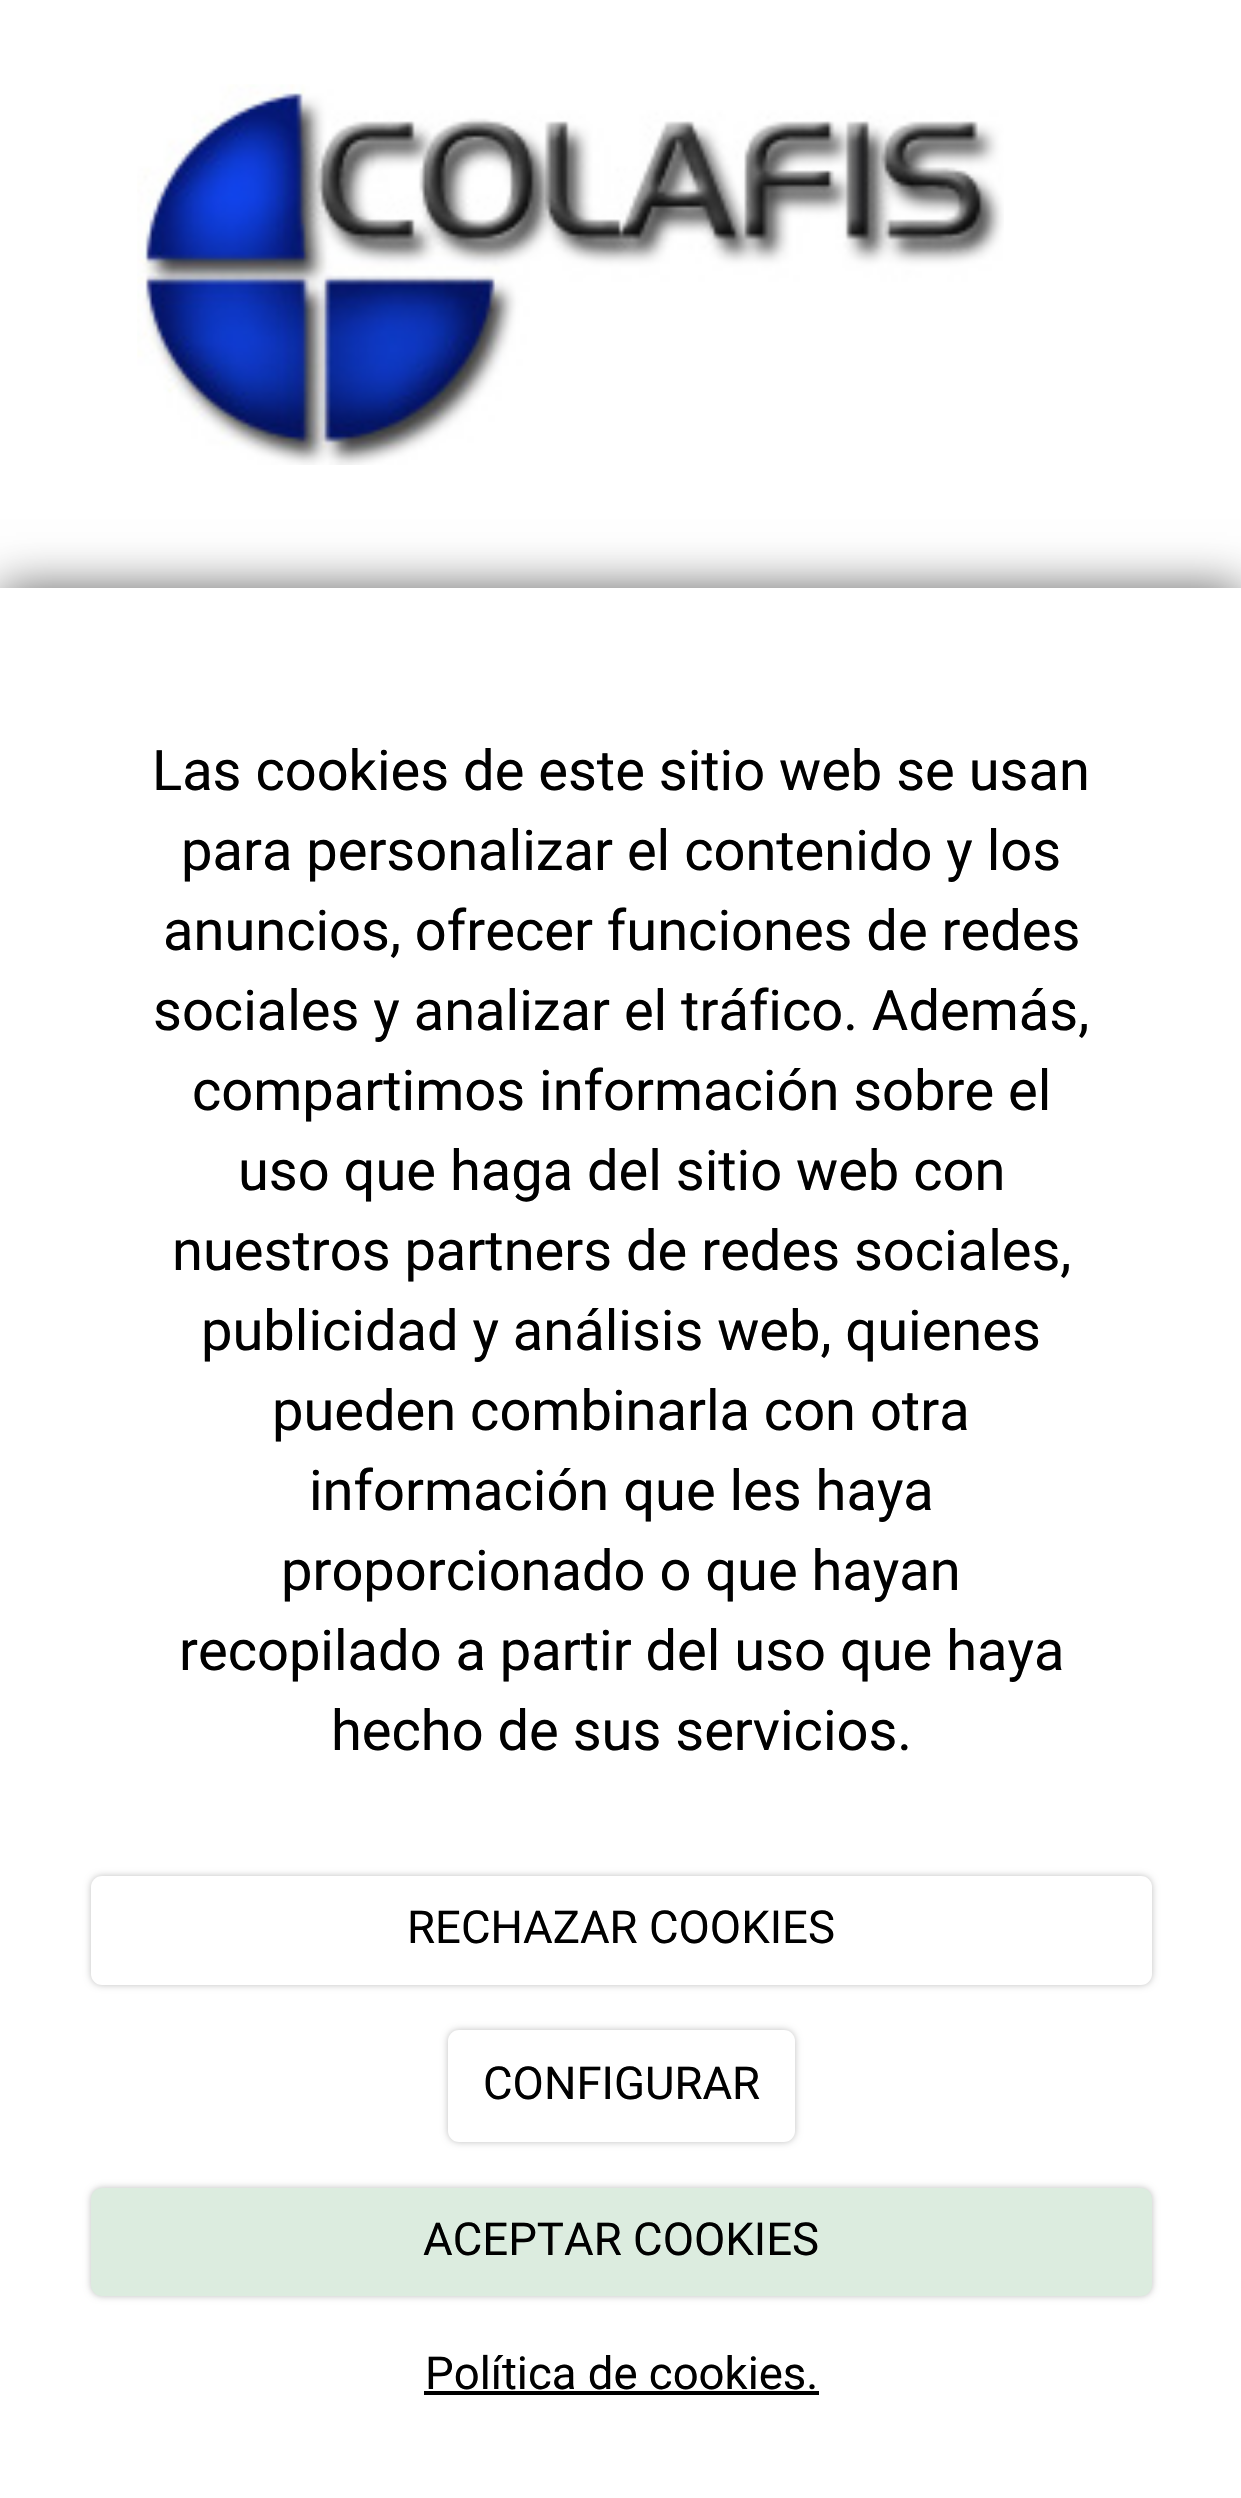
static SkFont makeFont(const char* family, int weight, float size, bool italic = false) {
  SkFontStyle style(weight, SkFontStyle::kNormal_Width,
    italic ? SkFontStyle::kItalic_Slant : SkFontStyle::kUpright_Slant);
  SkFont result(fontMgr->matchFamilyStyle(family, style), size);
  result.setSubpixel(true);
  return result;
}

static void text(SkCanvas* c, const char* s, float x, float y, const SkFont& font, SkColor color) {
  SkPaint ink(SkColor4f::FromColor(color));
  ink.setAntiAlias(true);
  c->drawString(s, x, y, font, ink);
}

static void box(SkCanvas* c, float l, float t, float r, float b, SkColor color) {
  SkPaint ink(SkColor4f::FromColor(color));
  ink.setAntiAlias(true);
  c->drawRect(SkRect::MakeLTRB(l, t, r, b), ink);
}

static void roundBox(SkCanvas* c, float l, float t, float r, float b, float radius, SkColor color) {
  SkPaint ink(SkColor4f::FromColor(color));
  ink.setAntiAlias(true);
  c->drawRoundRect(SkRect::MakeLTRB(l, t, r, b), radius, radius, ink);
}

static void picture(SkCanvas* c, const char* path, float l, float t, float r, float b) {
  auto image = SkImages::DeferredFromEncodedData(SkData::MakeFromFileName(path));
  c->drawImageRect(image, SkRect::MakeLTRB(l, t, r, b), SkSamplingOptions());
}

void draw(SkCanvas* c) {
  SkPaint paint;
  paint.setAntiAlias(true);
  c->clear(0xffffffff);
  picture(c, "img_01.png", 137, 84, 1004, 465);
  paint.setColor(0x99000000);
  paint.setMaskFilter(SkMaskFilter::MakeBlur(kNormal_SkBlurStyle, 23));
  c->drawRect(SkRect::MakeLTRB(0, 588, 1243, 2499), paint);
  paint.setMaskFilter(nullptr);
  box(c, 0, 588, 1241, 2498, 0xffffffff);
  SkFont face1 = makeFont("Roboto", 400, 56);
  text(c, "Las cookies de este sitio web se usan", 152, 790, face1, 0xff000000);
  text(c, "para personalizar el contenido y los", 181, 870, face1, 0xff000000);
  text(c, "anuncios, ofrecer funciones de redes", 163, 950, face1, 0xff000000);
  text(c, "sociales y analizar el tráfico. Además,", 153, 1030, face1, 0xff000000);
  text(c, "compartimos información sobre el", 192, 1110, face1, 0xff000000);
  text(c, "uso que haga del sitio web con", 238, 1190, face1, 0xff000000);
  text(c, "nuestros partners de redes sociales,", 172, 1270, face1, 0xff000000);
  text(c, "publicidad y análisis web, quienes", 201, 1350, face1, 0xff000000);
  text(c, "pueden combinarla con otra", 272, 1430, face1, 0xff000000);
  text(c, "información que les haya", 309, 1510, face1, 0xff000000);
  text(c, "proporcionado o que hayan", 281, 1590, face1, 0xff000000);
  text(c, "recopilado a partir del uso que haya", 179, 1670, face1, 0xff000000);
  text(c, "hecho de sus servicios.", 331, 1750, face1, 0xff000000);
  paint.setColor(0x40000000);
  paint.setMaskFilter(SkMaskFilter::MakeBlur(kNormal_SkBlurStyle, 3.5f));
  c->drawRoundRect(SkRect::MakeLTRB(91, 1876, 1152, 1985), 11, 11, paint);
  paint.setMaskFilter(nullptr);
  roundBox(c, 91, 1876, 1152, 1985, 11, 0xffffffff);
  SkFont face2 = makeFont("Roboto", 400, 45.5f);
  text(c, "RECHAZAR COOKIES", 407, 1943, face2, 0xff000000);
  paint.setMaskFilter(SkMaskFilter::MakeBlur(kNormal_SkBlurStyle, 3.5f));
  c->drawRoundRect(SkRect::MakeLTRB(448, 2030, 795, 2142), 11, 11, paint);
  paint.setMaskFilter(nullptr);
  roundBox(c, 448, 2030, 795, 2142, 11, 0xffffffff);
  text(c, "CONFIGURAR", 483, 2099, face2, 0xff000000);
  paint.setMaskFilter(SkMaskFilter::MakeBlur(kNormal_SkBlurStyle, 3.5f));
  c->drawRoundRect(SkRect::MakeLTRB(91, 2188, 1152, 2296), 11, 11, paint);
  paint.setMaskFilter(nullptr);
  roundBox(c, 91, 2188, 1152, 2296, 11, 0xffdcecdf);
  text(c, "ACEPTAR COOKIES", 423, 2255, face2, 0xff000000);
  text(c, "Política de cookies.", 425, 2389, face2, 0xff000000);
  box(c, 424, 2391, 819, 2395, 0xff000000);
}
